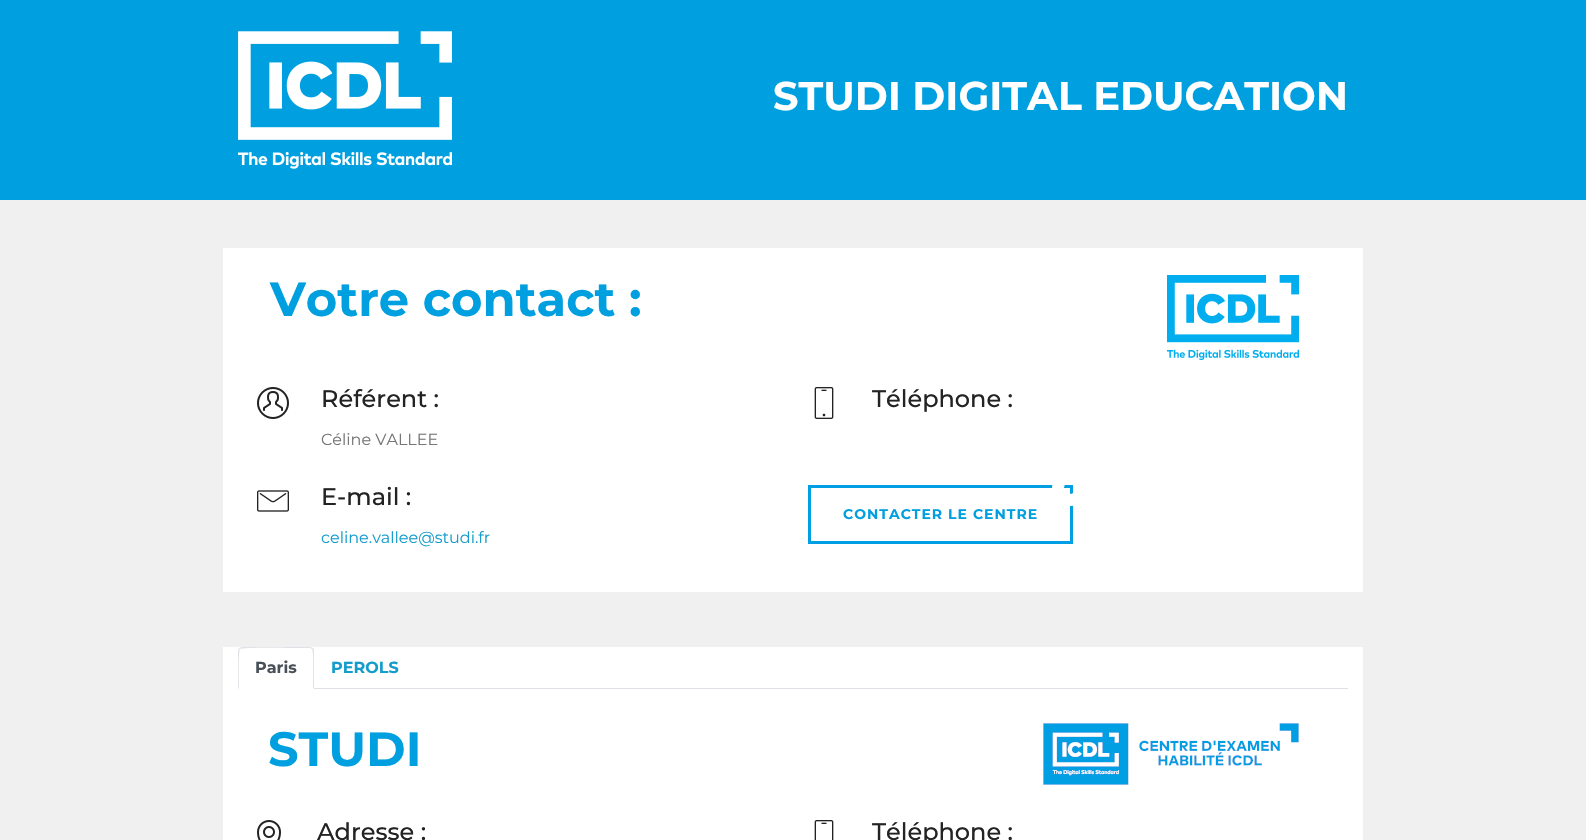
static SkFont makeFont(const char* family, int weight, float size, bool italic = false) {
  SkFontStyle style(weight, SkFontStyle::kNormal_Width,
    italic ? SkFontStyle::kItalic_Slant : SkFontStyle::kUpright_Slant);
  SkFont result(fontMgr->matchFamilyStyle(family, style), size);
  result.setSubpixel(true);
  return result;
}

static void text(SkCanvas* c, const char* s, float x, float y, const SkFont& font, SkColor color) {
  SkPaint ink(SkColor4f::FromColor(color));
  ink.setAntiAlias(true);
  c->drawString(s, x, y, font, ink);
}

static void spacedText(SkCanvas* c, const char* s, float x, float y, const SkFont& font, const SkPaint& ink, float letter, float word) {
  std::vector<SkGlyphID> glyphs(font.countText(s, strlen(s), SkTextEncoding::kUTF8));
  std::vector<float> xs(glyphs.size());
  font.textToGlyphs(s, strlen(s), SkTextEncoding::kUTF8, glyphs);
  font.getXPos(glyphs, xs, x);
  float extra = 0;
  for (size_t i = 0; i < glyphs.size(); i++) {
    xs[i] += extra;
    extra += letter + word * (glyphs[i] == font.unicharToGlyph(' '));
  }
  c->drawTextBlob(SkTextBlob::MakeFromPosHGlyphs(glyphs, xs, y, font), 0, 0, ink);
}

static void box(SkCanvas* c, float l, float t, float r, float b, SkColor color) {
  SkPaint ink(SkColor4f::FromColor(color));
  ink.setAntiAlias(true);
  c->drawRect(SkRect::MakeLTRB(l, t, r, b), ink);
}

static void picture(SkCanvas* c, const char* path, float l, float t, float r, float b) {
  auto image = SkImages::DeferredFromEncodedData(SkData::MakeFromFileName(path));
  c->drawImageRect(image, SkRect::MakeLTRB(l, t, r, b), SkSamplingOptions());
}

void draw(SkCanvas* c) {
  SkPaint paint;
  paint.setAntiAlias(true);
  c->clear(0xff009fdf);
  picture(c, "img_01.png", 238, 31, 452, 169);
  SkFont face1 = makeFont("Montserrat", 700, 40);
  text(c, "STUDI DIGITAL EDUCATION", 773, 110, face1, 0xffffffff);
  box(c, 0, 200, 1586, 840, 0xfff0f0f0);
  box(c, 223, 248, 1363, 592, 0xffffffff);
  SkFont face2 = makeFont("Montserrat", 700, 48);
  text(c, "Votre contact :", 270, 316, face2, 0xff009fdf);
  picture(c, "img_02.png", 1167, 275, 1299, 360);
  picture(c, "img_03.png", 257, 387, 289, 419);
  SkFont face3 = makeFont("Montserrat", 500, 24);
  text(c, "Référent :", 321, 407, face3, 0xff232323);
  SkFont face4 = makeFont("Montserrat", 400, 16);
  text(c, "Céline VALLEE", 321, 445, face4, 0xff767676);
  picture(c, "img_04.png", 814, 387, 834, 419);
  text(c, "Téléphone :", 872, 407, face3, 0xff232323);
  picture(c, "img_05.png", 257, 490, 289, 512);
  text(c, "E-mail :", 321, 505, face3, 0xff232323);
  text(c, "celine.vallee@studi.fr", 321, 543, face4, 0xff149dcc);
  paint.setStyle(SkPaint::kStroke_Style);
  paint.setStrokeWidth(3);
  paint.setColor(0xff009fe3);
  c->drawRect(SkRect::MakeLTRB(809.5f, 486.5f, 1071.5f, 542.5f), paint);
  paint.setStrokeWidth(12);
  paint.setColor(0xffffffff);
  c->drawCircle(1070, 488, 12, paint);
  SkFont face5 = makeFont("Montserrat", 700, 14);
  paint.setStyle(SkPaint::kFill_Style);
  paint.setColor(0xff009fdf);
  spacedText(c, "CONTACTER LE CENTRE", 843, 519, face5, paint, 1, 0);
  box(c, 223, 647, 1363, 840, 0xffffffff);
  box(c, 314, 688, 1348, 689, 0xffdee2e6);
  paint.setColor(0xffdee2e6);
  c->drawPath(SkPathBuilder().moveTo(242, 647).lineTo(239, 648).lineTo(240, 649).cubicTo(242, 647, 292, 648, 299, 648).lineTo(310, 648).lineTo(312, 649).lineTo(313, 648).lineTo(310, 647).close().detach(), paint);
  c->drawPath(SkPathBuilder().moveTo(314, 689).lineTo(314, 651).cubicTo(314, 650, 314, 649, 313, 648).lineTo(312, 649).cubicTo(314, 651, 313, 683, 313, 688).close().detach(), paint);
  paint.setColor(0xffffffff);
  c->drawPath(SkPathBuilder().moveTo(314, 689).lineTo(313, 688).lineTo(239, 688).lineTo(238, 689).close().detach(), paint);
  paint.setColor(0xffdee2e6);
  c->drawPath(SkPathBuilder().moveTo(238, 689).lineTo(239, 688).cubicTo(239, 683, 238, 651, 240, 649).lineTo(239, 648).lineTo(238, 651).close().detach(), paint);
  SkFont face6 = makeFont("Montserrat", 700, 16);
  text(c, "Paris", 255, 673, face6, 0xff495057);
  text(c, "PEROLS", 331, 673, face6, 0xff149dcc);
  text(c, "STUDI", 268, 766, face2, 0xff009fdf);
  picture(c, "img_06.png", 1043, 723, 1299, 785);
  picture(c, "img_07.png", 257, 820, 281, 840);
  text(c, "Adresse :", 317, 840, face3, 0xff232323);
  picture(c, "img_08.png", 814, 820, 834, 840);
  text(c, "Téléphone :", 872, 840, face3, 0xff232323);
}
